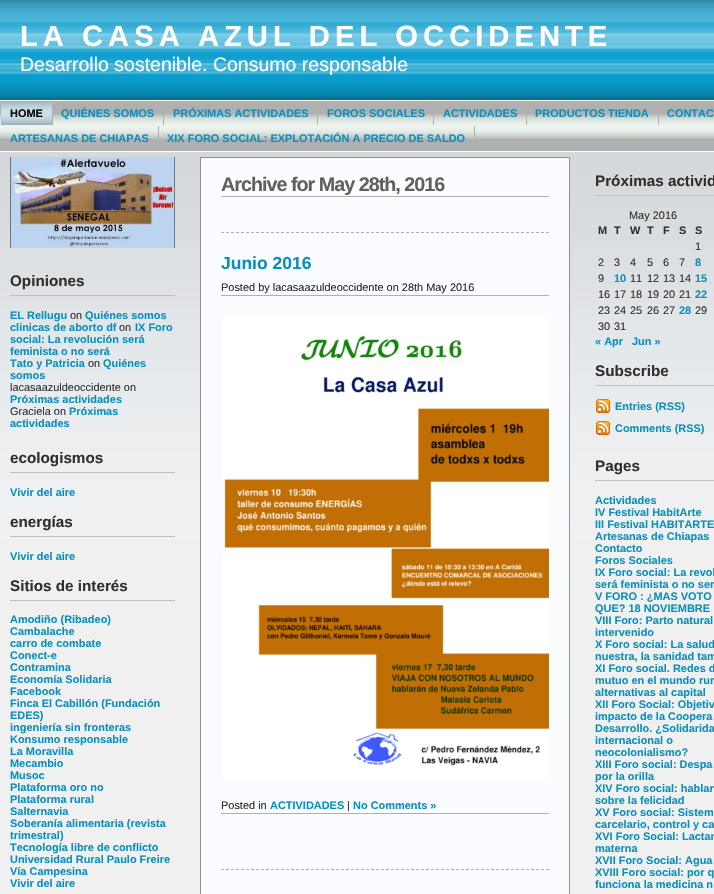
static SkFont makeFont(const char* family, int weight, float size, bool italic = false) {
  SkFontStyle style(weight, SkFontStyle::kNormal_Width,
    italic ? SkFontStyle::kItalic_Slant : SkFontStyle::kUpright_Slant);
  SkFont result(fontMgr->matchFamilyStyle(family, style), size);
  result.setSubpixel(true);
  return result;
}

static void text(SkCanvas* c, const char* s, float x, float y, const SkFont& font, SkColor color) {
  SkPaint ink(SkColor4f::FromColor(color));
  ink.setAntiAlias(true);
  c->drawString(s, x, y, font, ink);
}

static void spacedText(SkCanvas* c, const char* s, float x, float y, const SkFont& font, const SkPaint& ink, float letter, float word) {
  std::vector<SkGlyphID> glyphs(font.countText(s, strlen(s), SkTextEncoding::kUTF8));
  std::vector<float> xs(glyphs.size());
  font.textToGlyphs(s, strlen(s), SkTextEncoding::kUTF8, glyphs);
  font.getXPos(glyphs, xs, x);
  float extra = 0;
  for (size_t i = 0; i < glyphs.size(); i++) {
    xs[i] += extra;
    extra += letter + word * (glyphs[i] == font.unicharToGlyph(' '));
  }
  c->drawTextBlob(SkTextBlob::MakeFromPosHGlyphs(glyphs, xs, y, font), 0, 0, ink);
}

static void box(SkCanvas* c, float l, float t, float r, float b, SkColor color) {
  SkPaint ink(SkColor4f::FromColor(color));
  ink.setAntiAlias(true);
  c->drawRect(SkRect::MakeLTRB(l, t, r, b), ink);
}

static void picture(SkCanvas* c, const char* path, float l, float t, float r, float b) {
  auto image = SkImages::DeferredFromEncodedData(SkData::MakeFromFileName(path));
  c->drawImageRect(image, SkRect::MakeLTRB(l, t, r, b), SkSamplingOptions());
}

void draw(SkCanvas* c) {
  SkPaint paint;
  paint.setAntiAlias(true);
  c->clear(0xfff0f0f0);
  picture(c, "img_01.png", 0, 0, 714, 540);
  SkFont face1 = makeFont("Liberation Sans", 700, 29.2f);
  paint.setColor(0xffffffff);
  spacedText(c, "LA CASA AZUL DEL OCCIDENTE", 20, 46, face1, paint, 5, 0);
  SkFont face2 = makeFont("Liberation Sans", 400, 19.5f);
  text(c, "Desarrollo sostenible. Consumo responsable", 20, 71, face2, 0xffffffff);
  box(c, 0, 101, 714, 151, 0xffb0b0b0);
  picture(c, "img_02.png", 0, 114, 714, 139);
  box(c, 0, 100, 714, 101, 0xffffffff);
  box(c, 0, 151, 714, 152, 0xffffffff);
  picture(c, "img_03.png", 1, 101, 52, 125);
  SkFont face3 = makeFont("Liberation Sans", 700, 10.95f);
  text(c, "QUIÉNES SOMOS", 61, 117, face3, 0xff0a8fbc);
  box(c, 163, 114, 164, 125, 0xffb0b0b0);
  text(c, "PRÓXIMAS ACTIVIDADES", 173, 117, face3, 0xff0a8fbc);
  box(c, 317, 114, 318, 125, 0xffb0b0b0);
  text(c, "HOME", 10, 117, face3, 0xff000000);
  box(c, 52, 114, 53, 125, 0xffb0b0b0);
  text(c, "FOROS SOCIALES", 327, 117, face3, 0xff0a8fbc);
  box(c, 433, 114, 434, 125, 0xffb0b0b0);
  text(c, "ACTIVIDADES", 443, 117, face3, 0xff0a8fbc);
  box(c, 526, 114, 527, 125, 0xffb0b0b0);
  text(c, "PRODUCTOS TIENDA", 535, 117, face3, 0xff0a8fbc);
  box(c, 658, 114, 659, 125, 0xffb0b0b0);
  text(c, "CONTAC", 667, 117, face3, 0xff0a8fbc);
  text(c, "ARTESANAS DE CHIAPAS", 10, 142, face3, 0xff0a8fbc);
  box(c, 158, 126, 159, 139, 0xffb0b0b0);
  text(c, "XIX FORO SOCIAL: EXPLOTACIÓN A PRECIO DE SALDO", 167, 142, face3, 0xff0a8fbc);
  box(c, 474, 126, 475, 139, 0xffb0b0b0);
  picture(c, "img_04.png", 10, 157, 175, 248);
  box(c, 10, 295, 175, 296, 0xffbebfc3);
  SkFont face4 = makeFont("Liberation Sans", 700, 15.25f);
  text(c, "Opiniones", 10, 286, face4, 0xff303030);
  text(c, "EL Rellugu", 10, 319, face3, 0xff0a8fbc);
  SkFont face5 = makeFont("Liberation Sans", 400, 10.95f);
  text(c, "on", 70, 319, face5, 0xff303030);
  text(c, "Quiénes somos", 85, 319, face3, 0xff0a8fbc);
  text(c, "clinicas de aborto df", 10, 331, face3, 0xff0a8fbc);
  text(c, "on", 119, 331, face5, 0xff303030);
  text(c, "IX Foro", 135, 331, face3, 0xff0a8fbc);
  text(c, "social: La revolución será", 10, 343, face3, 0xff0a8fbc);
  text(c, "feminista o no será", 10, 355, face3, 0xff0a8fbc);
  text(c, "Tato y Patricia", 10, 367, face3, 0xff0a8fbc);
  text(c, "on", 88, 367, face5, 0xff303030);
  text(c, "Quiénes", 103, 367, face3, 0xff0a8fbc);
  text(c, "somos", 10, 379, face3, 0xff0a8fbc);
  text(c, "lacasaazuldeoccidente on", 10, 391, face5, 0xff303030);
  text(c, "Próximas actividades", 10, 403, face3, 0xff0a8fbc);
  text(c, "Graciela on", 10, 415, face5, 0xff303030);
  text(c, "Próximas", 69, 415, face3, 0xff0a8fbc);
  text(c, "actividades", 10, 427, face3, 0xff0a8fbc);
  box(c, 10, 472, 175, 473, 0xffbebfc3);
  text(c, "ecologismos", 10, 463, face4, 0xff303030);
  text(c, "Vivir del aire", 10, 496, face3, 0xff0a8fbc);
  box(c, 10, 536, 175, 537, 0xffbebfc3);
  text(c, "energías", 10, 527, face4, 0xff303030);
  text(c, "Vivir del aire", 10, 560, face3, 0xff0a8fbc);
  box(c, 10, 600, 175, 601, 0xffbebfc3);
  text(c, "Sitios de interés", 10, 591, face4, 0xff303030);
  text(c, "Amodiño (Ribadeo)", 10, 623, face3, 0xff0a8fbc);
  text(c, "Cambalache", 10, 635, face3, 0xff0a8fbc);
  text(c, "carro de combate", 10, 647, face3, 0xff0a8fbc);
  text(c, "Conect-e", 10, 659, face3, 0xff0a8fbc);
  text(c, "Contramina", 10, 671, face3, 0xff0a8fbc);
  text(c, "Economía Solidaria", 10, 683, face3, 0xff0a8fbc);
  text(c, "Facebook", 10, 695, face3, 0xff0a8fbc);
  text(c, "Finca El Cabillón (Fundación", 10, 707, face3, 0xff0a8fbc);
  text(c, "EDES)", 10, 719, face3, 0xff0a8fbc);
  text(c, "ingeniería sin fronteras", 10, 731, face3, 0xff0a8fbc);
  text(c, "Konsumo responsable", 10, 743, face3, 0xff0a8fbc);
  text(c, "La Moravilla", 10, 755, face3, 0xff0a8fbc);
  text(c, "Mecambio", 10, 767, face3, 0xff0a8fbc);
  text(c, "Musoc", 10, 779, face3, 0xff0a8fbc);
  text(c, "Plataforma oro no", 10, 791, face3, 0xff0a8fbc);
  text(c, "Plataforma rural", 10, 803, face3, 0xff0a8fbc);
  text(c, "Salternavia", 10, 815, face3, 0xff0a8fbc);
  text(c, "Soberanía alimentaria (revista", 10, 827, face3, 0xff0a8fbc);
  text(c, "trimestral)", 10, 839, face3, 0xff0a8fbc);
  text(c, "Tecnología libre de conflicto", 10, 851, face3, 0xff0a8fbc);
  text(c, "Universidad Rural Paulo Freire", 10, 863, face3, 0xff0a8fbc);
  text(c, "Vía Campesina", 10, 875, face3, 0xff0a8fbc);
  text(c, "Vivir del aire", 10, 887, face3, 0xff0a8fbc);
  paint.setColor(0xfffafcff);
  c->drawRect(SkRect::MakeLTRB(200.5f, 157.5f, 569.5f, 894.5f), paint);
  paint.setStyle(SkPaint::kStroke_Style);
  paint.setStrokeWidth(1);
  paint.setColor(0xff909090);
  c->drawRect(SkRect::MakeLTRB(200.5f, 157.5f, 569.5f, 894.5f), paint);
  box(c, 221, 196, 549, 197, 0xffb0b0b0);
  SkFont face6 = makeFont("Liberation Sans", 700, 19.75f);
  paint.setStyle(SkPaint::kFill_Style);
  paint.setColor(0xff606060);
  spacedText(c, "Archive for May 28th, 2016", 221, 191, face6, paint, -1, 0);
  paint.setStyle(SkPaint::kStroke_Style);
  paint.setColor(0xffb0b0b0);
  paint.setPathEffect(SkDashPathEffect::Make({{3, 2}}, 0));
  c->drawPath(SkPathBuilder().moveTo(221, 232.5f).lineTo(549, 232.5f).detach(), paint);
  paint.setPathEffect(nullptr);
  SkFont face7 = makeFont("Liberation Sans", 700, 17.5f);
  text(c, "Junio 2016", 221, 269, face7, 0xff0a8fbc);
  box(c, 221, 295, 549, 296, 0xffb0b0b0);
  text(c, "Posted by lacasaazuldeoccidente on 28th May 2016", 221, 291, face5, 0xff2a2a2a);
  picture(c, "img_05.png", 223, 316, 549, 780);
  box(c, 221, 813, 549, 814, 0xffb0b0b0);
  text(c, "Posted in", 221, 809, face5, 0xff2a2a2a);
  text(c, "ACTIVIDADES", 270, 809, face3, 0xff0a8fbc);
  text(c, "|", 347, 809, face5, 0xff2a2a2a);
  text(c, "No Comments »", 353, 809, face3, 0xff0a8fbc);
  paint.setPathEffect(SkDashPathEffect::Make({{3, 2}}, 0));
  c->drawPath(SkPathBuilder().moveTo(221, 869.5f).lineTo(549, 869.5f).detach(), paint);
  paint.setPathEffect(nullptr);
  box(c, 595, 195, 714, 196, 0xffbebfc3);
  text(c, "Próximas activid", 595, 186, face4, 0xff303030);
  text(c, "May 2016", 629, 219, face5, 0xff303030);
  text(c, "M", 598, 234, face3, 0xff303030);
  text(c, "T", 614, 234, face3, 0xff303030);
  text(c, "W", 630, 234, face3, 0xff303030);
  text(c, "T", 647, 234, face3, 0xff303030);
  text(c, "F", 663, 234, face3, 0xff303030);
  text(c, "S", 679, 234, face3, 0xff303030);
  text(c, "S", 695, 234, face3, 0xff303030);
  text(c, "1", 695, 250, face5, 0xff303030);
  text(c, "2", 598, 266, face5, 0xff303030);
  text(c, "3", 614, 266, face5, 0xff303030);
  text(c, "4", 630, 266, face5, 0xff303030);
  text(c, "5", 647, 266, face5, 0xff303030);
  text(c, "6", 663, 266, face5, 0xff303030);
  text(c, "7", 679, 266, face5, 0xff303030);
  text(c, "8", 695, 266, face3, 0xff0a8fbc);
  text(c, "9", 598, 282, face5, 0xff303030);
  text(c, "10", 614, 282, face3, 0xff0a8fbc);
  text(c, "11", 630, 282, face5, 0xff303030);
  text(c, "12", 647, 282, face5, 0xff303030);
  text(c, "13", 663, 282, face5, 0xff303030);
  text(c, "14", 679, 282, face5, 0xff303030);
  text(c, "15", 695, 282, face3, 0xff0a8fbc);
  text(c, "16", 598, 298, face5, 0xff303030);
  text(c, "17", 614, 298, face5, 0xff303030);
  text(c, "18", 630, 298, face5, 0xff303030);
  text(c, "19", 647, 298, face5, 0xff303030);
  text(c, "20", 663, 298, face5, 0xff303030);
  text(c, "21", 679, 298, face5, 0xff303030);
  text(c, "22", 695, 298, face3, 0xff0a8fbc);
  text(c, "23", 598, 314, face5, 0xff303030);
  text(c, "24", 614, 314, face5, 0xff303030);
  text(c, "25", 630, 314, face5, 0xff303030);
  text(c, "26", 647, 314, face5, 0xff303030);
  text(c, "27", 663, 314, face5, 0xff303030);
  text(c, "28", 679, 314, face3, 0xff0a8fbc);
  text(c, "29", 695, 314, face5, 0xff303030);
  text(c, "30", 598, 330, face5, 0xff303030);
  text(c, "31", 614, 330, face5, 0xff303030);
  text(c, "« Apr", 595, 345, face3, 0xff0a8fbc);
  text(c, "Jun »", 632, 345, face3, 0xff0a8fbc);
  box(c, 595, 385, 714, 386, 0xffbebfc3);
  text(c, "Subscribe", 595, 376, face4, 0xff303030);
  picture(c, "img_06.png", 596, 399, 610, 413);
  text(c, "Entries (RSS)", 615, 410, face3, 0xff0a8fbc);
  picture(c, "img_07.png", 596, 421, 610, 435);
  text(c, "Comments (RSS)", 615, 432, face3, 0xff0a8fbc);
  box(c, 595, 480, 714, 481, 0xffbebfc3);
  text(c, "Pages", 595, 471, face4, 0xff303030);
  text(c, "Actividades", 595, 504, face3, 0xff0a8fbc);
  text(c, "IV Festival HabitArte", 595, 516, face3, 0xff0a8fbc);
  text(c, "III Festival HABITARTE", 595, 528, face3, 0xff0a8fbc);
  text(c, "Artesanas de Chiapas", 595, 540, face3, 0xff0a8fbc);
  text(c, "Contacto", 595, 552, face3, 0xff0a8fbc);
  text(c, "Foros Sociales", 595, 564, face3, 0xff0a8fbc);
  text(c, "IX Foro social: La revol", 595, 576, face3, 0xff0a8fbc);
  text(c, "será feminista o no ser", 595, 588, face3, 0xff0a8fbc);
  text(c, "V FORO : ¿MAS VOTO", 595, 600, face3, 0xff0a8fbc);
  text(c, "QUE? 18 NOVIEMBRE", 595, 612, face3, 0xff0a8fbc);
  text(c, "VIII Foro: Parto natural", 595, 624, face3, 0xff0a8fbc);
  text(c, "intervenido", 595, 636, face3, 0xff0a8fbc);
  text(c, "X Foro social: La salud", 595, 648, face3, 0xff0a8fbc);
  text(c, "nuestra, la sanidad tam", 595, 660, face3, 0xff0a8fbc);
  text(c, "XI Foro social. Redes d", 595, 672, face3, 0xff0a8fbc);
  text(c, "mutuo en el mundo rur", 595, 684, face3, 0xff0a8fbc);
  text(c, "alternativas al capital", 595, 696, face3, 0xff0a8fbc);
  text(c, "XII Foro Social: Objetiv", 595, 708, face3, 0xff0a8fbc);
  text(c, "impacto de la Coopera", 595, 720, face3, 0xff0a8fbc);
  text(c, "Desarrollo. ¿Solidarida", 595, 732, face3, 0xff0a8fbc);
  text(c, "internacional o", 595, 744, face3, 0xff0a8fbc);
  text(c, "neocolonialismo?", 595, 756, face3, 0xff0a8fbc);
  text(c, "XIII Foro social: Despa", 595, 768, face3, 0xff0a8fbc);
  text(c, "por la orilla", 595, 780, face3, 0xff0a8fbc);
  text(c, "XIV Foro social: hablan", 595, 792, face3, 0xff0a8fbc);
  text(c, "sobre la felicidad", 595, 804, face3, 0xff0a8fbc);
  text(c, "XV Foro social: Sistem", 595, 816, face3, 0xff0a8fbc);
  text(c, "carcelario, control y ca", 595, 828, face3, 0xff0a8fbc);
  text(c, "XVI Foro Social: Lactan", 595, 840, face3, 0xff0a8fbc);
  text(c, "materna", 595, 852, face3, 0xff0a8fbc);
  text(c, "XVII Foro Social: Agua", 595, 864, face3, 0xff0a8fbc);
  text(c, "XVIII Foro social: por q", 595, 876, face3, 0xff0a8fbc);
  text(c, "funciona la medicina n", 595, 888, face3, 0xff0a8fbc);
}
